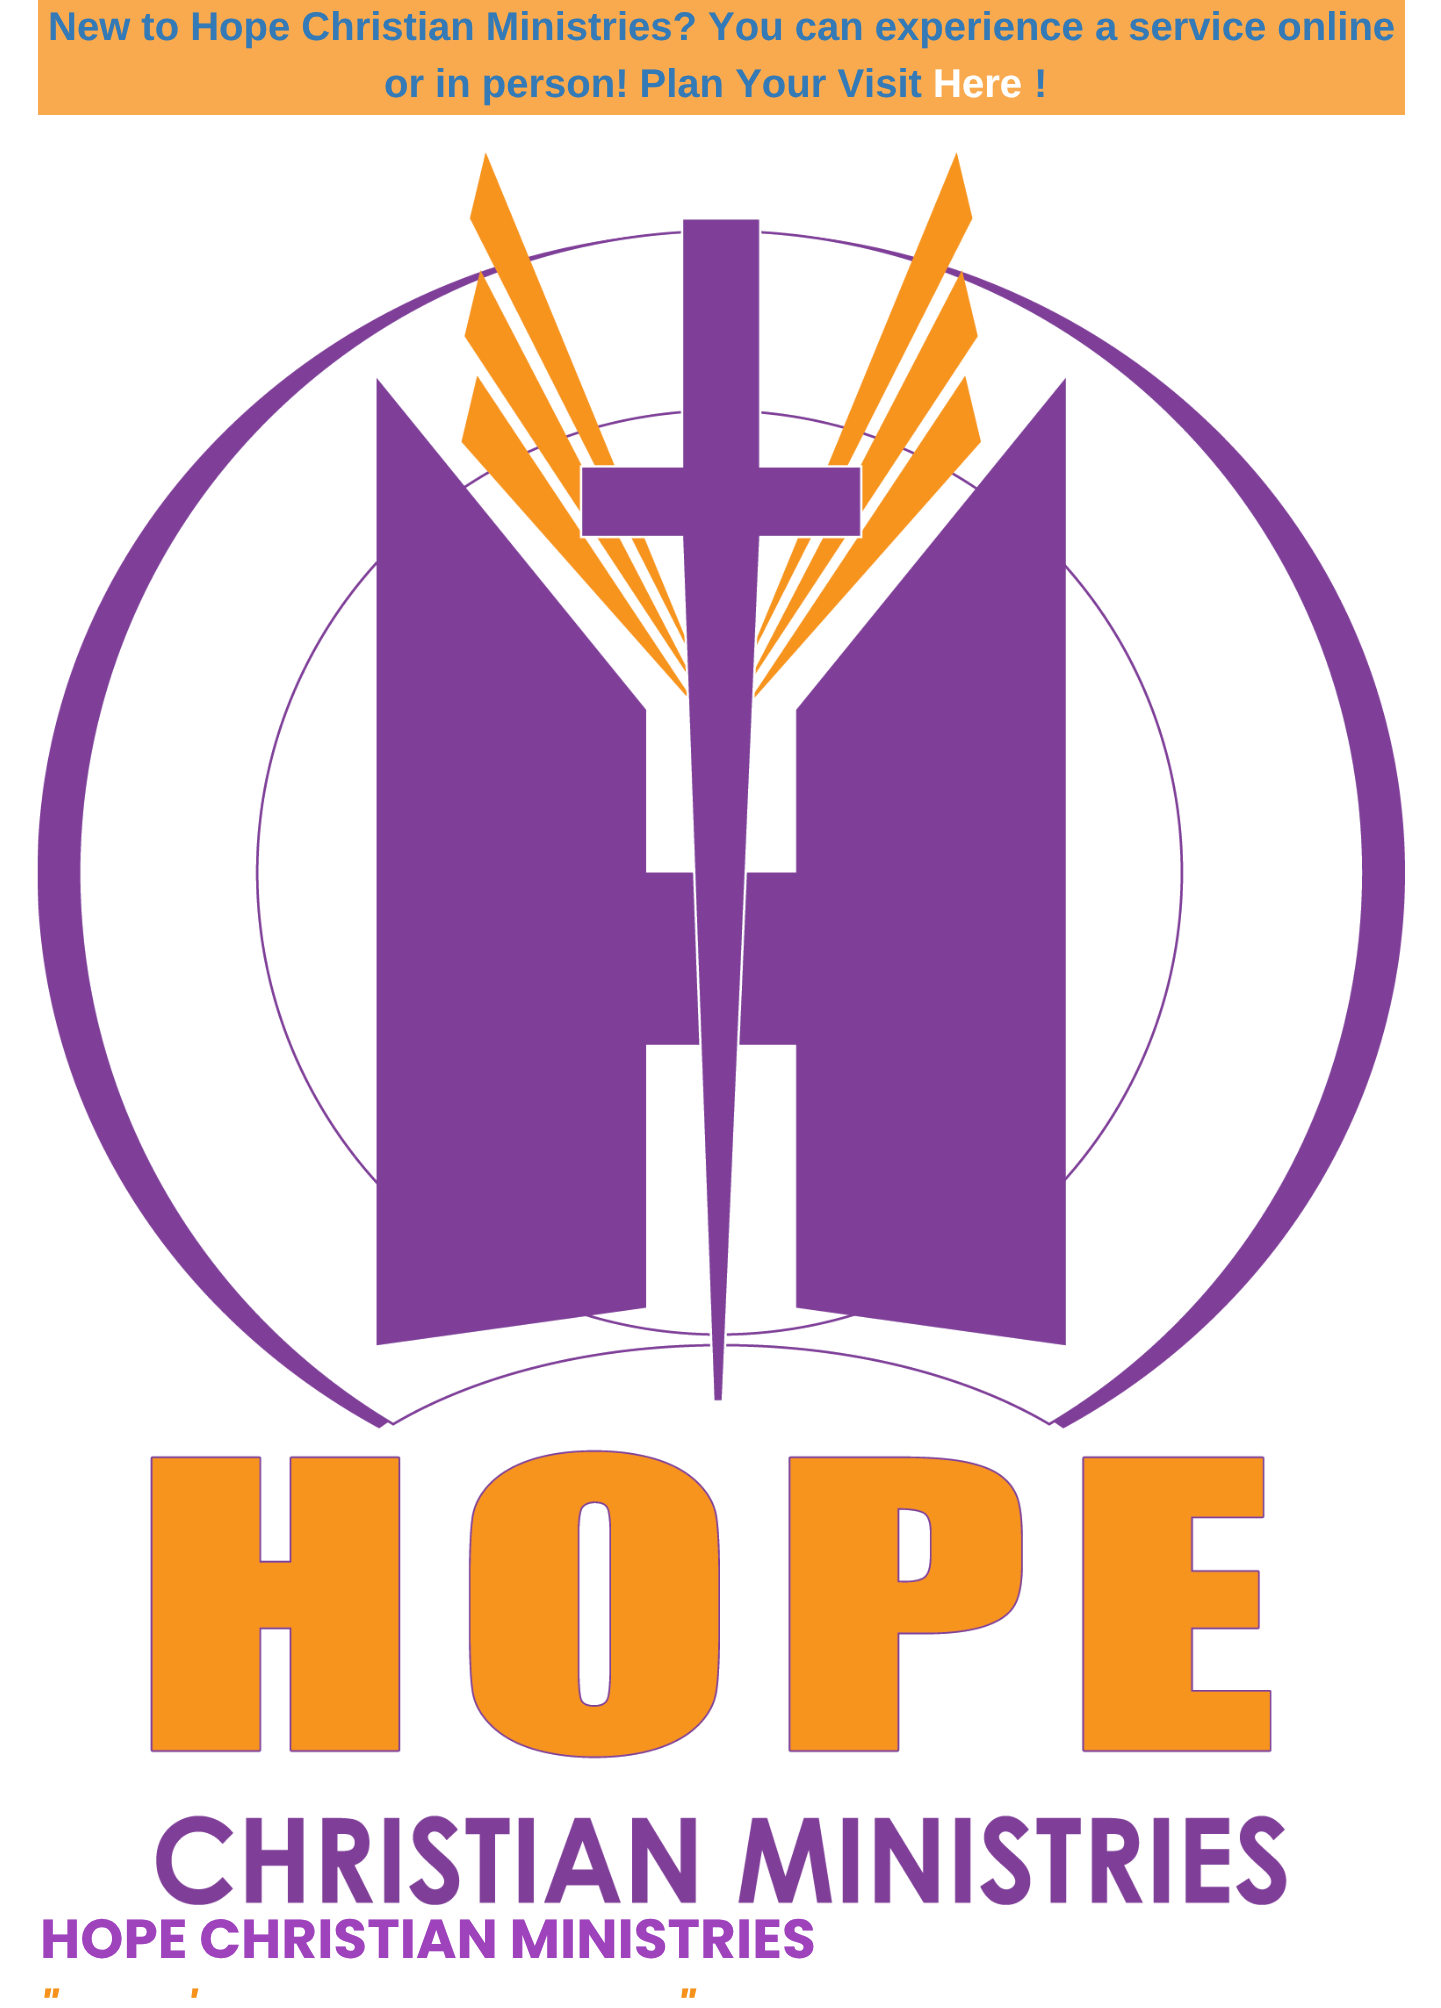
static SkFont makeFont(const char* family, int weight, float size, bool italic = false) {
  SkFontStyle style(weight, SkFontStyle::kNormal_Width,
    italic ? SkFontStyle::kItalic_Slant : SkFontStyle::kUpright_Slant);
  SkFont result(fontMgr->matchFamilyStyle(family, style), size);
  result.setSubpixel(true);
  return result;
}

static void text(SkCanvas* c, const char* s, float x, float y, const SkFont& font, SkColor color) {
  SkPaint ink(SkColor4f::FromColor(color));
  ink.setAntiAlias(true);
  c->drawString(s, x, y, font, ink);
}

static void box(SkCanvas* c, float l, float t, float r, float b, SkColor color) {
  SkPaint ink(SkColor4f::FromColor(color));
  ink.setAntiAlias(true);
  c->drawRect(SkRect::MakeLTRB(l, t, r, b), ink);
}

static void picture(SkCanvas* c, const char* path, float l, float t, float r, float b) {
  auto image = SkImages::DeferredFromEncodedData(SkData::MakeFromFileName(path));
  c->drawImageRect(image, SkRect::MakeLTRB(l, t, r, b), SkSamplingOptions());
}

void draw(SkCanvas* c) {
  SkPaint paint;
  paint.setAntiAlias(true);
  c->clear(0xffffffff);
  box(c, 38, 0, 1405, 115, 0xfff9aa4e);
  SkFont face1 = makeFont("Liberation Sans", 700, 40);
  text(c, "New to Hope Christian Ministries? You can experience a service online", 48, 40, face1, 0xff337ab7);
  text(c, "or in person! Plan Your Visit", 384, 97, face1, 0xff337ab7);
  text(c, "Here", 933, 97, face1, 0xffffffff);
  text(c, "!", 1034, 97, face1, 0xff337ab7);
  picture(c, "img_01.png", 37, 152, 1405, 1905);
  SkFont face2 = makeFont("Poppins", 700, 55);
  text(c, "HOPE CHRISTIAN MINISTRIES", 40, 1958, face2, 0xff9f43bd);
  SkFont face3 = makeFont("Poppins", 700, 42, true);
  text(c, "\"", 40, 2022, face3, 0xfff7931d);
  text(c, "'", 187, 2022, face3, 0xfff7931d);
  text(c, "\"", 677, 2022, face3, 0xfff7931d);
}
